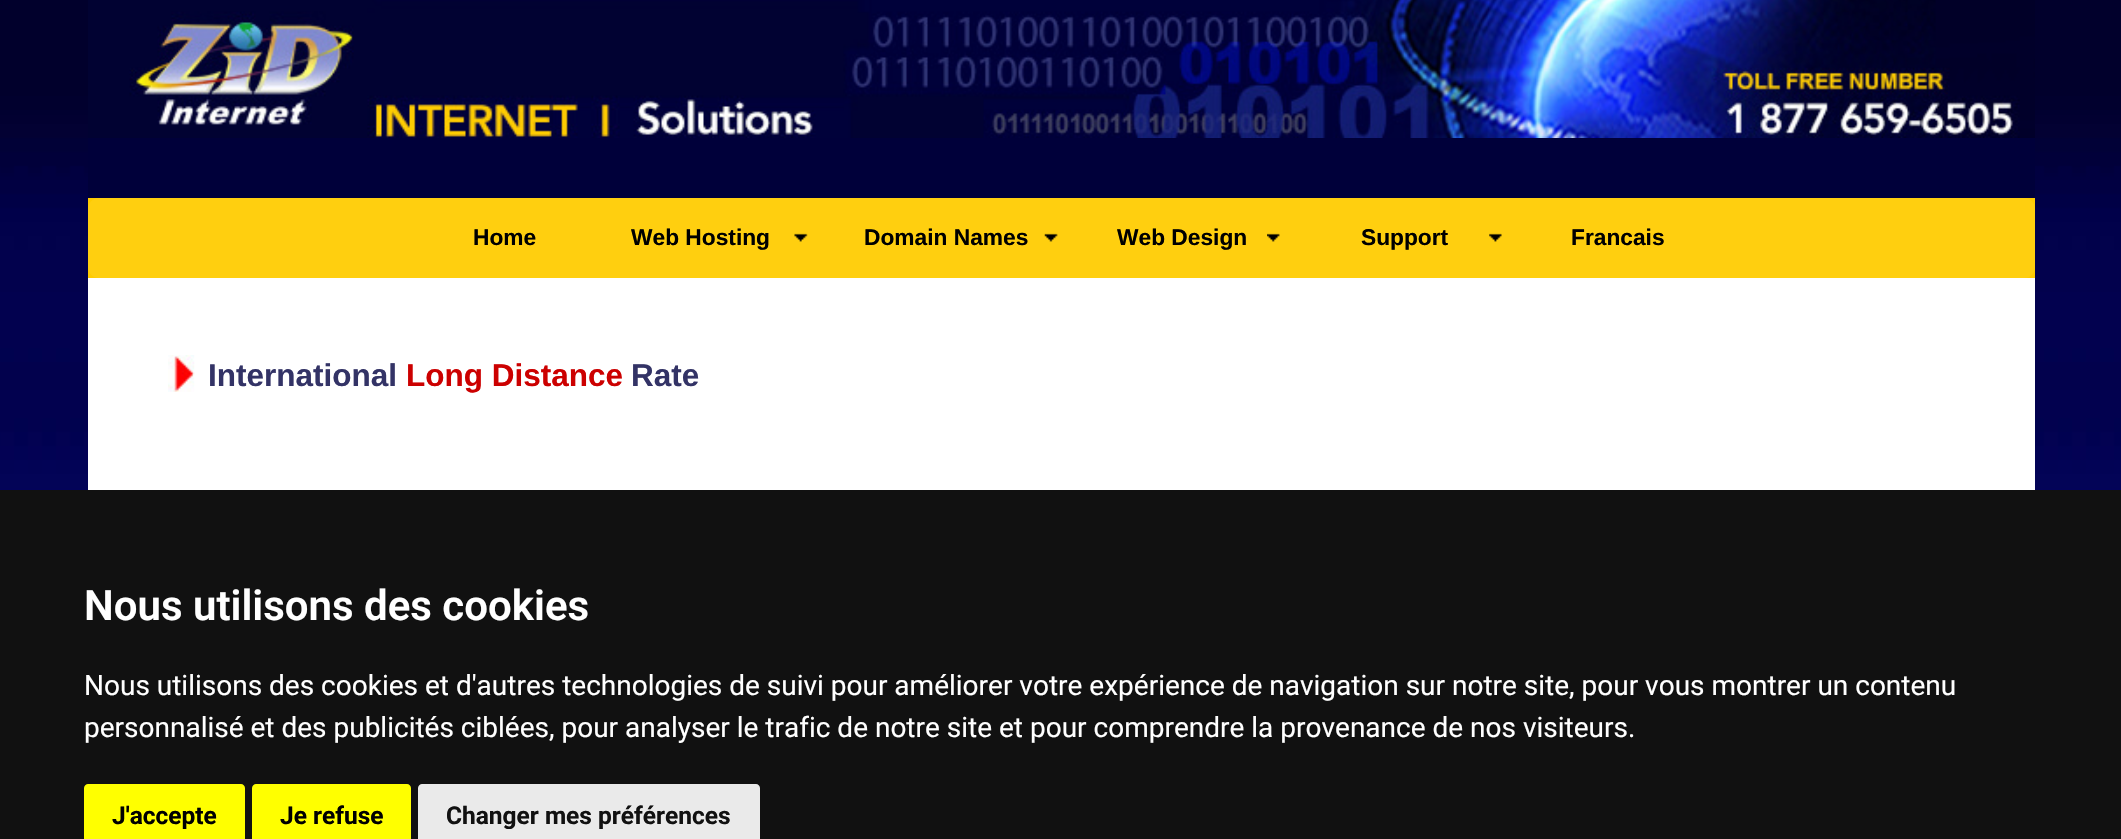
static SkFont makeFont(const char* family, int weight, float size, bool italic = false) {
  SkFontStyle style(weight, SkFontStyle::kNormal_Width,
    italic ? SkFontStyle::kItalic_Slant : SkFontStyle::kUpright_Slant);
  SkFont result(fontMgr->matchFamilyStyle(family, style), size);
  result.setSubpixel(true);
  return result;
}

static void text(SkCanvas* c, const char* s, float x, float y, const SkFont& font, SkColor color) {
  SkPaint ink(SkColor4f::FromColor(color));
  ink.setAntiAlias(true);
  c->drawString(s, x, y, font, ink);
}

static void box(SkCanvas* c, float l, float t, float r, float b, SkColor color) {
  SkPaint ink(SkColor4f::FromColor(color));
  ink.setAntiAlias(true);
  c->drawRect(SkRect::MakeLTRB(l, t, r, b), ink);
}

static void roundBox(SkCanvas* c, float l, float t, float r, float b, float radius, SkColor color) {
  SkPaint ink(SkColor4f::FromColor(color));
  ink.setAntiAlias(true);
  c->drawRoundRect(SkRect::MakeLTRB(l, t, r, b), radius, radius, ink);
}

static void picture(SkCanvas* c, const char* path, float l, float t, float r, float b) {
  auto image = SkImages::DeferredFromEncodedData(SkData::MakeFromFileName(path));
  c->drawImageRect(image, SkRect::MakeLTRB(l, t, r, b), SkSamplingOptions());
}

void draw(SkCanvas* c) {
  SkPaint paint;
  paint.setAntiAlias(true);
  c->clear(0xffffffff);
  picture(c, "img_01.png", 0, 0, 2121, 490);
  box(c, 88, 278, 2035, 490, 0xffffffff);
  box(c, 88, 138, 2035, 198, 0xff00003a);
  picture(c, "img_02.png", 88, 0, 2035, 138);
  box(c, 88, 198, 2035, 278, 0xffffcc00);
  roundBox(c, 88, 198, 2035, 278, 11, 0xffffcf0f);
  SkFont face1 = makeFont("Liberation Sans", 700, 22.75f);
  text(c, "Home", 473, 245, face1, 0xff000000);
  picture(c, "img_03.png", 794, 233, 808, 242);
  text(c, "Web Hosting", 631, 245, face1, 0xff000000);
  picture(c, "img_04.png", 1044, 233, 1058, 242);
  text(c, "Domain Names", 864, 245, face1, 0xff000000);
  picture(c, "img_05.png", 1267, 233, 1280, 242);
  text(c, "Web Design", 1117, 245, face1, 0xff000000);
  picture(c, "img_06.png", 1489, 233, 1502, 242);
  text(c, "Support", 1361, 245, face1, 0xff000000);
  text(c, "Francais", 1571, 245, face1, 0xff000000);
  picture(c, "img_07.png", 168, 355, 195, 392);
  SkFont face2 = makeFont("Liberation Sans", 700, 31.5f);
  text(c, "International", 208, 386, face2, 0xff333366);
  text(c, "Long Distance", 406, 386, face2, 0xffcc0000);
  text(c, "Rate", 631, 386, face2, 0xff333366);
  box(c, 0, 490, 2121, 839, 0xff111111);
  SkFont face3 = makeFont("Roboto", 600, 42);
  text(c, "Nous utilisons des cookies", 84, 620, face3, 0xffffffff);
  SkFont face4 = makeFont("Roboto", 400, 28);
  text(c, "Nous utilisons des cookies et d'autres technologies de suivi pour améliorer votre expérience de navigation sur notre site, pour vous montrer un contenu", 84, 695, face4, 0xffffffff);
  text(c, "personnalisé et des publicités ciblées, pour analyser le trafic de notre site et pour comprendre la provenance de nos visiteurs.", 84, 737, face4, 0xffffffff);
  paint.setColor(0xffffff00);
  c->drawPath(SkPathBuilder().moveTo(88, 784).lineTo(241, 784).cubicTo(243, 784, 245, 786, 245, 788).lineTo(245, 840).lineTo(84, 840).lineTo(84, 788).cubicTo(84, 786, 86, 784, 88, 784).close().detach(), paint);
  SkFont face5 = makeFont("Roboto", 700, 24.5f);
  text(c, "J'accepte", 112, 824, face5, 0xff000000);
  c->drawPath(SkPathBuilder().moveTo(256, 784).lineTo(407, 784).cubicTo(409, 784, 411, 786, 411, 788).lineTo(411, 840).lineTo(252, 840).lineTo(252, 788).cubicTo(252, 786, 254, 784, 256, 784).close().detach(), paint);
  text(c, "Je refuse", 280, 824, face5, 0xff000000);
  paint.setColor(0xffeaeaea);
  c->drawPath(SkPathBuilder().moveTo(422, 784).lineTo(756, 784).cubicTo(758, 784, 760, 786, 760, 788).lineTo(760, 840).lineTo(418, 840).lineTo(418, 788).cubicTo(418, 786, 420, 784, 422, 784).close().detach(), paint);
  text(c, "Changer mes préférences", 446, 824, face5, 0xff111111);
}
